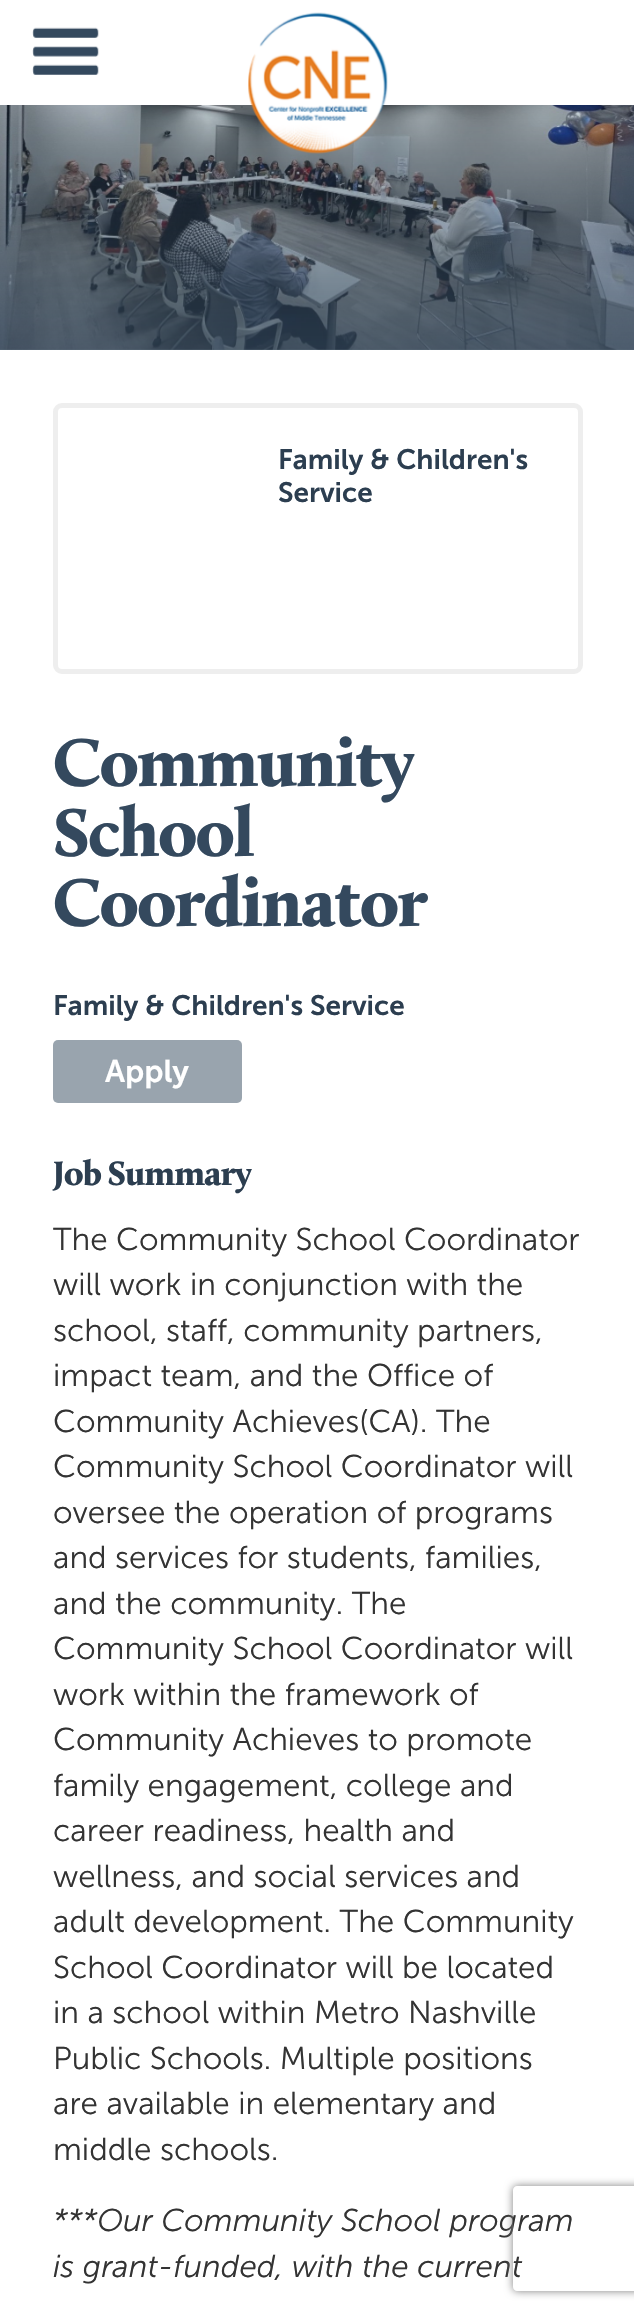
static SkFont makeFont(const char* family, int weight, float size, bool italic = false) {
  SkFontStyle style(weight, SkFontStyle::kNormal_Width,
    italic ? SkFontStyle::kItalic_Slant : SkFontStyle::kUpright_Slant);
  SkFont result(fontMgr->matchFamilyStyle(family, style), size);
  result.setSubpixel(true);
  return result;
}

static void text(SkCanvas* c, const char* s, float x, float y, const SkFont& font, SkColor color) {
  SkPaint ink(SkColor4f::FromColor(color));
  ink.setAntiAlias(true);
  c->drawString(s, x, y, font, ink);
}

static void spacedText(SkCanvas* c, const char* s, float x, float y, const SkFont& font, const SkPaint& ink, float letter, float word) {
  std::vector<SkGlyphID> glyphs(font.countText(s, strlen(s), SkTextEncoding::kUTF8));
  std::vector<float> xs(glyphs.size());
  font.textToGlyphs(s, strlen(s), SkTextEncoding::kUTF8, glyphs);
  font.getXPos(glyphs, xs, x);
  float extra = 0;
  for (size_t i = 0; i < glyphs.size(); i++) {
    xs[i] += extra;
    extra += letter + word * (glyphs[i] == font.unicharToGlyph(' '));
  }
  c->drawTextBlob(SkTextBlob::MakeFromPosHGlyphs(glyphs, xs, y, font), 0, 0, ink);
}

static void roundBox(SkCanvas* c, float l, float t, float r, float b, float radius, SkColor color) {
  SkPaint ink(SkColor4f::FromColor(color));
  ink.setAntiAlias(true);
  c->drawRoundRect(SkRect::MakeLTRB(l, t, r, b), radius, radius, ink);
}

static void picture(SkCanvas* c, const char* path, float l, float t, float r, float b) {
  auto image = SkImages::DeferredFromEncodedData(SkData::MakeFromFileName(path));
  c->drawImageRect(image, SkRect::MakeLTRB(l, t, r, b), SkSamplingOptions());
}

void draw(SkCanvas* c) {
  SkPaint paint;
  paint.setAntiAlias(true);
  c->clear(0xffffffff);
  picture(c, "img_01.png", 32, 27, 99, 75);
  picture(c, "img_03.png", 0, 105, 634, 350);
  {
    const SkColor colors[] = {0x4034495e, 0xbf34495e};
    const float stops[] = {0, 1};
    const SkPoint ends[] = {{318, 105}, {318, 350}};
    paint.setShader(SkGradientShader::MakeLinear(ends, colors, stops, 2, SkTileMode::kClamp));
    paint.setAlpha(255);
  }
  c->drawRect(SkRect::MakeLTRB(0, 105, 634, 350), paint);
  picture(c, "img_02.png", 248, 12, 388, 154);
  paint.setStyle(SkPaint::kStroke_Style);
  paint.setStrokeWidth(5);
  paint.setShader(nullptr);
  paint.setColor(0xffeeeeee);
  c->drawRoundRect(SkRect::MakeLTRB(55.5f, 405.5f, 580.5f, 671.5f), 6.5f, 6.5f, paint);
  SkFont face1 = makeFont("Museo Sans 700", 600, 28);
  text(c, "Family & Children's", 278, 469, face1, 0xff2c3e50);
  text(c, "Service", 278, 502, face1, 0xff2c3e50);
  SkFont face2 = makeFont("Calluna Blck", 900, 70);
  paint.setStyle(SkPaint::kFill_Style);
  paint.setColor(0xff34495e);
  spacedText(c, "Community", 53, 786, face2, paint, -1.4f, 0);
  spacedText(c, "School", 53, 856, face2, paint, -1.4f, 0);
  spacedText(c, "Coordinator", 53, 926, face2, paint, -1.4f, 0);
  text(c, "Family & Children's Service", 53, 1015, face1, 0xff2c3e50);
  roundBox(c, 53, 1040, 242, 1103, 5, 0xff99a4ae);
  SkFont face3 = makeFont("Museo Sans 700", 600, 31.5f);
  text(c, "Apply", 105, 1082, face3, 0xffffffff);
  SkFont face4 = makeFont("Calluna Blck", 900, 35);
  paint.setColor(0xff2c3e50);
  spacedText(c, "Job Summary", 53, 1185, face4, paint, -0.75f, 0);
  SkFont face5 = makeFont("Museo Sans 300", 300, 31.5f);
  text(c, "The Community School Coordinator", 53, 1250, face5, 0xff333333);
  text(c, "will work in conjunction with the", 53, 1295, face5, 0xff333333);
  text(c, "school, staff, community partners,", 53, 1341, face5, 0xff333333);
  text(c, "impact team, and the Office of", 53, 1386, face5, 0xff333333);
  text(c, "Community Achieves(CA). The", 53, 1432, face5, 0xff333333);
  text(c, "Community School Coordinator will", 53, 1477, face5, 0xff333333);
  text(c, "oversee the operation of programs", 53, 1523, face5, 0xff333333);
  text(c, "and services for students, families,", 53, 1568, face5, 0xff333333);
  text(c, "and the community. The", 53, 1614, face5, 0xff333333);
  text(c, "Community School Coordinator will", 53, 1659, face5, 0xff333333);
  text(c, "work within the framework of", 53, 1705, face5, 0xff333333);
  text(c, "Community Achieves to promote", 53, 1750, face5, 0xff333333);
  text(c, "family engagement, college and", 53, 1796, face5, 0xff333333);
  text(c, "career readiness, health and", 53, 1841, face5, 0xff333333);
  text(c, "wellness, and social services and", 53, 1887, face5, 0xff333333);
  text(c, "adult development. The Community", 53, 1932, face5, 0xff333333);
  text(c, "School Coordinator will be located", 53, 1978, face5, 0xff333333);
  text(c, "in a school within Metro Nashville", 53, 2023, face5, 0xff333333);
  text(c, "Public Schools. Multiple positions", 53, 2069, face5, 0xff333333);
  text(c, "are available in elementary and", 53, 2114, face5, 0xff333333);
  text(c, "middle schools.", 53, 2160, face5, 0xff333333);
  SkFont face6 = makeFont("Museo Sans 300", 300, 31.5f, true);
  text(c, "***Our Community School program", 53, 2231, face6, 0xff333333);
  text(c, "is grant-funded, with the current", 53, 2277, face6, 0xff333333);
  c->save();
  c->clipPath(SkPathBuilder(SkPathFillType::kEvenOdd).moveTo(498, 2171).lineTo(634, 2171).lineTo(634, 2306).lineTo(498, 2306).close().moveTo(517, 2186).lineTo(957, 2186).cubicTo(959, 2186, 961, 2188, 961, 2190).lineTo(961, 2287).cubicTo(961, 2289, 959, 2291, 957, 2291).lineTo(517, 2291).cubicTo(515, 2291, 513, 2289, 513, 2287).lineTo(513, 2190).cubicTo(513, 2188, 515, 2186, 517, 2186).close().detach(), true);
  paint.setColor(0xff808080);
  paint.setMaskFilter(SkMaskFilter::MakeBlur(kNormal_SkBlurStyle, 4.5f));
  c->drawRoundRect(SkRect::MakeLTRB(513, 2186, 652, 2291), 4, 4, paint);
  paint.setMaskFilter(nullptr);
  c->restore();
}
